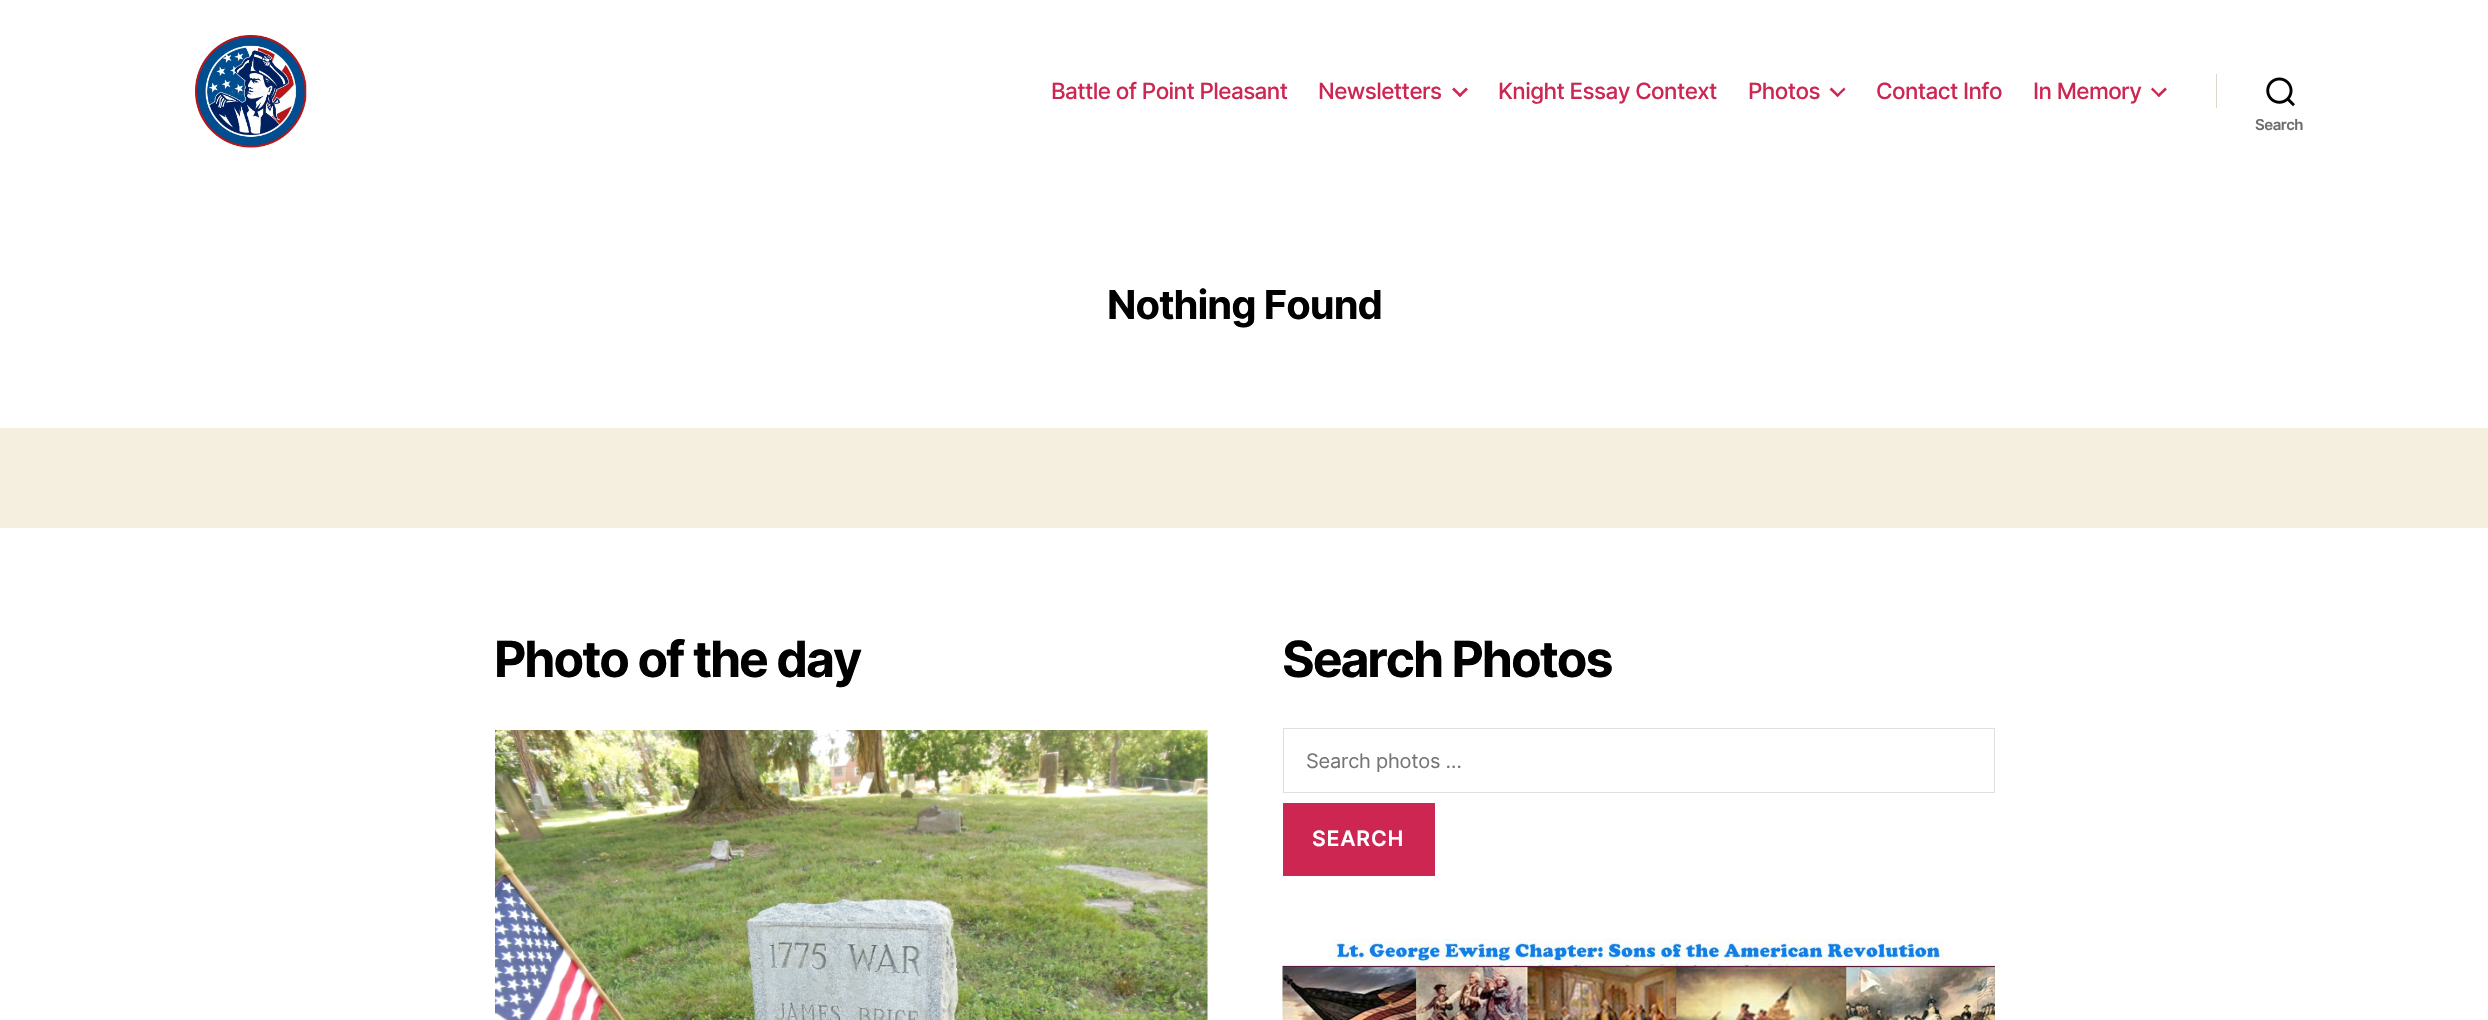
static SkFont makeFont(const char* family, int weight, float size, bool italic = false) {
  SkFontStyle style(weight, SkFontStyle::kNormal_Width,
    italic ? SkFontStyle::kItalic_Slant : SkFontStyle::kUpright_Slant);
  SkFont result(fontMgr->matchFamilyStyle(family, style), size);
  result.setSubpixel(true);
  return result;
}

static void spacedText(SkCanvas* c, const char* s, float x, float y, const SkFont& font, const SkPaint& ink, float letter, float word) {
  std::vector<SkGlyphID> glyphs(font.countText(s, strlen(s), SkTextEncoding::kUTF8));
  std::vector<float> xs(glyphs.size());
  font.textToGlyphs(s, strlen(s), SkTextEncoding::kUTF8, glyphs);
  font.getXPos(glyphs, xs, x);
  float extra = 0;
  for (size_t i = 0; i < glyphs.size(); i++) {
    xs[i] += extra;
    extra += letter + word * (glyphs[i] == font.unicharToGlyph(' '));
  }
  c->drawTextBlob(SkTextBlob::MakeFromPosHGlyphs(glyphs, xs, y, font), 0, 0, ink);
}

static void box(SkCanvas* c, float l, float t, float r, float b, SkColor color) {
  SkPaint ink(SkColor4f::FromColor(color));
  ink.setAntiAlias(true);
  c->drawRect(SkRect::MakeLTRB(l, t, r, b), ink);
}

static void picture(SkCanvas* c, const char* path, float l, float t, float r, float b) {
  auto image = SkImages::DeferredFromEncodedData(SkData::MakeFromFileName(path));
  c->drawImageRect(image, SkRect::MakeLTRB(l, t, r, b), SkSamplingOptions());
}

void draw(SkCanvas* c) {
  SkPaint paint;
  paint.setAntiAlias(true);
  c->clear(0xfff5efe0);
  box(c, 0, 0, 2488, 428, 0xffffffff);
  picture(c, "img_01.png", 195, 35, 307, 148);
  SkFont face1 = makeFont("Inter", 500, 22.5f);
  paint.setColor(0xffcd2653);
  spacedText(c, "Battle of Point Pleasant", 1051, 99, face1, paint, -0.6f, 0);
  spacedText(c, "Newsletters", 1318, 99, face1, paint, -0.6f, 0);
  c->drawPath(SkPathBuilder().moveTo(1452, 89.5f).lineTo(1454, 87.5f).lineTo(1462, 95.5f).lineTo(1460, 97).close().detach(), paint);
  c->drawPath(SkPathBuilder().moveTo(1458, 95.5f).lineTo(1466, 87.5f).lineTo(1468, 89.5f).lineTo(1460, 97).close().detach(), paint);
  spacedText(c, "Knight Essay Context", 1498, 99, face1, paint, -0.6f, 0);
  spacedText(c, "Photos", 1748, 99, face1, paint, -0.6f, 0);
  c->drawPath(SkPathBuilder().moveTo(1829.5f, 89.5f).lineTo(1831.5f, 87.5f).lineTo(1839.5f, 95.5f).lineTo(1837.5f, 97).close().detach(), paint);
  c->drawPath(SkPathBuilder().moveTo(1836, 95.5f).lineTo(1844, 87.5f).lineTo(1845.5f, 89.5f).lineTo(1837.5f, 97).close().detach(), paint);
  spacedText(c, "Contact Info", 1876, 99, face1, paint, -0.6f, 0);
  spacedText(c, "In Memory", 2033, 99, face1, paint, -0.6f, 0);
  c->drawPath(SkPathBuilder().moveTo(2151, 89.5f).lineTo(2152.5f, 87.5f).lineTo(2160.5f, 95.5f).lineTo(2159, 97).close().detach(), paint);
  c->drawPath(SkPathBuilder().moveTo(2157, 95.5f).lineTo(2165, 87.5f).lineTo(2167, 89.5f).lineTo(2159, 97).close().detach(), paint);
  box(c, 2216, 74, 2217, 108, 0xffdcd7ca);
  picture(c, "img_02.png", 2266, 77, 2295, 107);
  SkFont face2 = makeFont("Inter", 600, 15);
  paint.setColor(0xff6d6d6d);
  spacedText(c, "Search", 2255, 130, face2, paint, -0.5f, 0);
  SkFont face3 = makeFont("Inter", 700, 40);
  paint.setColor(0xff000000);
  spacedText(c, "Nothing Found", 1107, 319, face3, paint, -1, 0);
  box(c, 0, 528, 2488, 1020, 0xffffffff);
  SkFont face4 = makeFont("Inter", 700, 50);
  spacedText(c, "Photo of the day", 494, 677, face4, paint, -2.1f, 0);
  picture(c, "img_03.png", 495, 730, 1208, 1020);
  spacedText(c, "Search Photos", 1282, 677, face4, paint, -2.1f, 0);
  paint.setStyle(SkPaint::kStroke_Style);
  paint.setStrokeWidth(1);
  paint.setColor(0xffdedfdf);
  c->drawRect(SkRect::MakeLTRB(1283.5f, 728.5f, 1994.5f, 792.5f), paint);
  SkFont face5 = makeFont("Inter", 400, 20);
  paint.setStyle(SkPaint::kFill_Style);
  paint.setColor(0xff757575);
  spacedText(c, "Search photos …", 1306, 768, face5, paint, -0.25f, 0);
  box(c, 1283, 803, 1435, 876, 0xffcd2653);
  SkFont face6 = makeFont("Inter", 600, 21.25f);
  paint.setColor(0xffffffff);
  spacedText(c, "SEARCH", 1312, 846, face6, paint, 0.75f, 0);
  picture(c, "img_04.png", 1282, 938, 1995, 1020);
}
